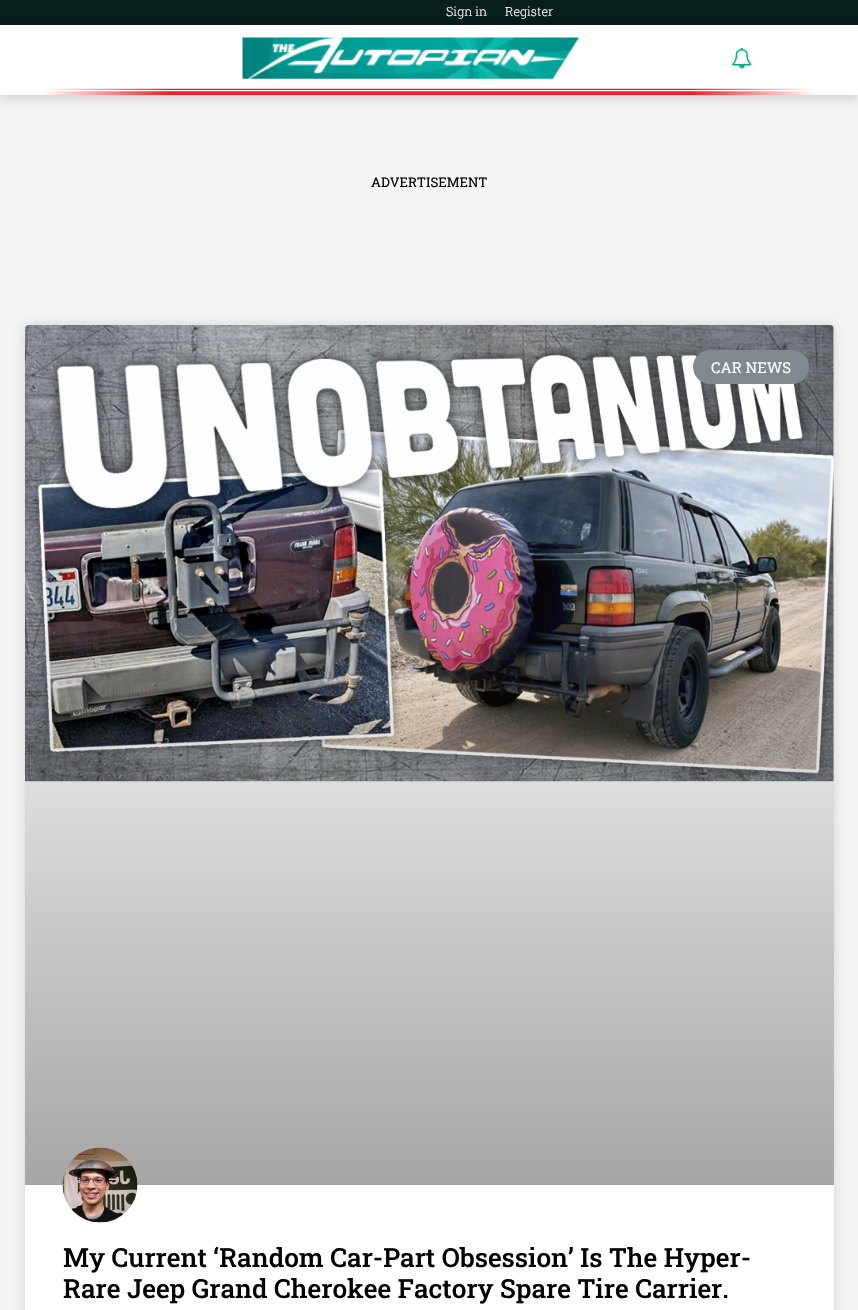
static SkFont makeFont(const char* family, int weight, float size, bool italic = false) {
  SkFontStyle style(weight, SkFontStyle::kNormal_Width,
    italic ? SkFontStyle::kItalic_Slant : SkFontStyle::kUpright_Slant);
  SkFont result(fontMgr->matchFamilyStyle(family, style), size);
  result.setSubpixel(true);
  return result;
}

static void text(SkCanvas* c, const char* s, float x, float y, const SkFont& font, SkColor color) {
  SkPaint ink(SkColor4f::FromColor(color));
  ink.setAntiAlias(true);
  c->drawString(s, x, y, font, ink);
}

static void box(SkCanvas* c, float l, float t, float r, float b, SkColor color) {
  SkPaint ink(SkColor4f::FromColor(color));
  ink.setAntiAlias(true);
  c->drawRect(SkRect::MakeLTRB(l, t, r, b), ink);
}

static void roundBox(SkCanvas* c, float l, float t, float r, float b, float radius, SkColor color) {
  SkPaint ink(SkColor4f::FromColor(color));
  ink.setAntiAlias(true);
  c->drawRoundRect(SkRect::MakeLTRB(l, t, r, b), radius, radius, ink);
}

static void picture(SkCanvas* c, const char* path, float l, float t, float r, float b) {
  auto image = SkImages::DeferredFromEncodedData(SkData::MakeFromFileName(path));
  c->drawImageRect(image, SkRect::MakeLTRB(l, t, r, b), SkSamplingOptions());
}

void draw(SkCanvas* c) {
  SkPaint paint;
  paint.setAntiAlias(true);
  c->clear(0xffffffff);
  box(c, 0, 0, 858, 25, 0xff061e1c);
  box(c, 0, 95, 858, 1310, 0xfff5f5f5);
  c->save();
  c->clipPath(SkPathBuilder(SkPathFillType::kEvenOdd).moveTo(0, 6).lineTo(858, 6).lineTo(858, 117).lineTo(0, 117).close().moveTo(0, 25).lineTo(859, 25).lineTo(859, 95).lineTo(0, 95).close().detach(), true);
  paint.setColor(0x29000000);
  paint.setMaskFilter(SkMaskFilter::MakeBlur(kNormal_SkBlurStyle, 6));
  c->drawRect(SkRect::MakeLTRB(-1, 25, 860, 98), paint);
  paint.setMaskFilter(nullptr);
  c->restore();
  picture(c, "img_01.png", 44, 91, 815, 95);
  picture(c, "img_02.png", 242, 37, 579, 79);
  picture(c, "img_03.png", 732, 48, 752, 69);
  picture(c, "img_04.png", 44, 88, 814, 90);
  SkFont face1 = makeFont("Roboto Slab", 300, 12.5f);
  text(c, "Sign in", 446, 16, face1, 0xffffffff);
  text(c, "Register", 505, 16, face1, 0xffffffff);
  SkFont face2 = makeFont("Roboto Slab", 400, 13.25f);
  text(c, "ADVERTISEMENT", 371, 187, face2, 0xff020101);
  paint.setColor(0x26000000);
  paint.setMaskFilter(SkMaskFilter::MakeBlur(kNormal_SkBlurStyle, 6));
  c->drawRoundRect(SkRect::MakeLTRB(25, 325, 834, 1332), 4, 4, paint);
  paint.setMaskFilter(nullptr);
  roundBox(c, 25, 325, 834, 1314, 4, 0xffffffff);
  picture(c, "img_05.png", 25, 325, 834, 782);
  {
    const SkColor colors[] = {0x59000000, 0x00000000};
    const float stops[] = {0, 0.75f};
    const SkPoint ends[] = {{429, 1185}, {429, 325}};
    paint.setShader(SkGradientShader::MakeLinear(ends, colors, stops, 2, SkTileMode::kClamp));
    paint.setAlpha(255);
  }
  c->drawRect(SkRect::MakeLTRB(25, 580, 834, 1185), paint);
  roundBox(c, 693, 350, 809, 384, 17, 0xff818a91);
  SkFont face3 = makeFont("Roboto Slab", 400, 15);
  text(c, "CAR NEWS", 711, 373, face3, 0xffffffff);
  picture(c, "img_06.png", 62, 1147, 138, 1223);
  SkFont face4 = makeFont("Roboto Slab", 500, 26.25f);
  text(c, "My Current ‘Random Car-Part Obsession’ Is The Hyper-", 63, 1267, face4, 0xff020101);
  text(c, "Rare Jeep Grand Cherokee Factory Spare Tire Carrier.", 63, 1298, face4, 0xff020101);
}
